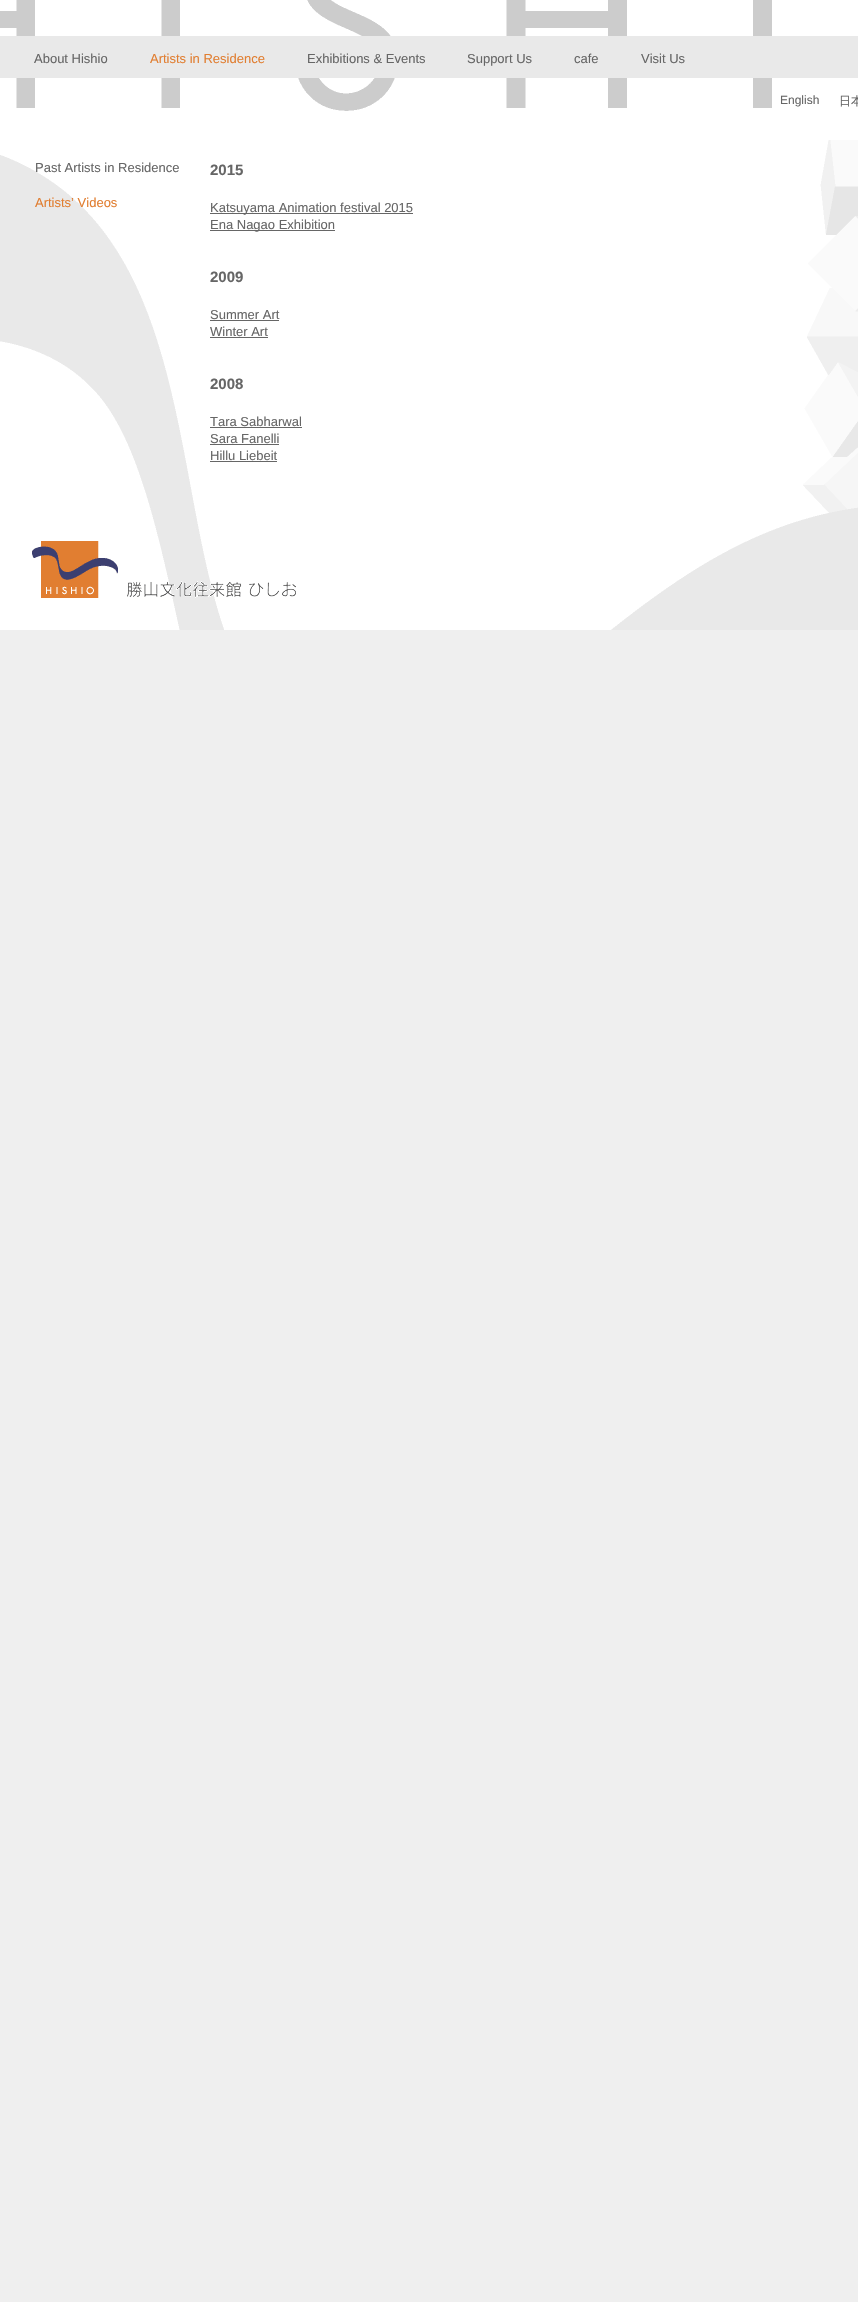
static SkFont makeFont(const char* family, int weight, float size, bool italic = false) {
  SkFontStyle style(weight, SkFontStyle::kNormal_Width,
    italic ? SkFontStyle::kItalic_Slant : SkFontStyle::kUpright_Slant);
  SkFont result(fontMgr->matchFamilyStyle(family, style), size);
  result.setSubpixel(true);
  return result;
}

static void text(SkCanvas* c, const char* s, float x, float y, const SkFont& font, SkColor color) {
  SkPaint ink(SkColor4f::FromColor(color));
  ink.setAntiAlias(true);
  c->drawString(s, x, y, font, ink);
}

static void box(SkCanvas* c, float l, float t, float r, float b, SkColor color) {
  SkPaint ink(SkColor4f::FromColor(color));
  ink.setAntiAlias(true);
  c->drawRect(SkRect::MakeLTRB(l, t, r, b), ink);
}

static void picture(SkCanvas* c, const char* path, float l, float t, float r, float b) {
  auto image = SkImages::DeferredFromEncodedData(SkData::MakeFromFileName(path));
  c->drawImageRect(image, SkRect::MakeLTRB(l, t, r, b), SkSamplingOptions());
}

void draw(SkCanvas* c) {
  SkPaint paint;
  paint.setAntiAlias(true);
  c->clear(0xffefefef);
  box(c, 0, 0, 858, 140, 0xffffffff);
  picture(c, "img_01.png", 0, 0, 772, 111);
  box(c, 0, 36, 858, 78, 0xffe9e9e9);
  SkFont face1 = makeFont("Liberation Sans", 400, 13);
  text(c, "About Hishio", 34, 63, face1, 0xff666666);
  text(c, "Artists in Residence", 150, 63, face1, 0xffe17e31);
  text(c, "Exhibitions & Events", 307, 63, face1, 0xff666666);
  text(c, "Support Us", 467, 63, face1, 0xff666666);
  text(c, "cafe", 574, 63, face1, 0xff666666);
  text(c, "Visit Us", 641, 63, face1, 0xff666666);
  picture(c, "img_02.png", 0, 140, 858, 630);
  SkFont face2 = makeFont("Liberation Sans", 400, 12);
  text(c, "English", 780, 104, face2, 0xff666666);
  SkFont face3 = makeFont("WenQuanYi Zen Hei", 500, 12);
  text(c, "日本", 839, 105, face3, 0xff666666);
  text(c, "Past Artists in Residence", 35, 172, face1, 0xff666666);
  text(c, "Artists’ Videos", 35, 207, face1, 0xffe17e31);
  SkFont face4 = makeFont("Liberation Sans", 700, 15);
  text(c, "2015", 210, 175, face4, 0xff666666);
  box(c, 210, 213, 413, 214, 0xff666666);
  text(c, "Katsuyama Animation festival 2015", 210, 212, face1, 0xff666666);
  box(c, 210, 230, 335, 231, 0xff666666);
  text(c, "Ena Nagao Exhibition", 210, 229, face1, 0xff666666);
  text(c, "2009", 210, 282, face4, 0xff666666);
  text(c, "Summer Art", 210, 319, face1, 0xff666666);
  box(c, 210, 320, 279, 321, 0xff666666);
  text(c, "Winter Art", 210, 336, face1, 0xff666666);
  box(c, 210, 337, 268, 338, 0xff666666);
  text(c, "2008", 210, 389, face4, 0xff666666);
  text(c, "Tara Sabharwal", 210, 426, face1, 0xff666666);
  box(c, 210, 427, 302, 428, 0xff666666);
  text(c, "Sara Fanelli", 210, 443, face1, 0xff666666);
  box(c, 210, 444, 279, 445, 0xff666666);
  text(c, "Hillu Liebeit", 210, 460, face1, 0xff666666);
  box(c, 210, 461, 277, 462, 0xff666666);
  picture(c, "img_03.png", 32, 541, 296, 598);
}
